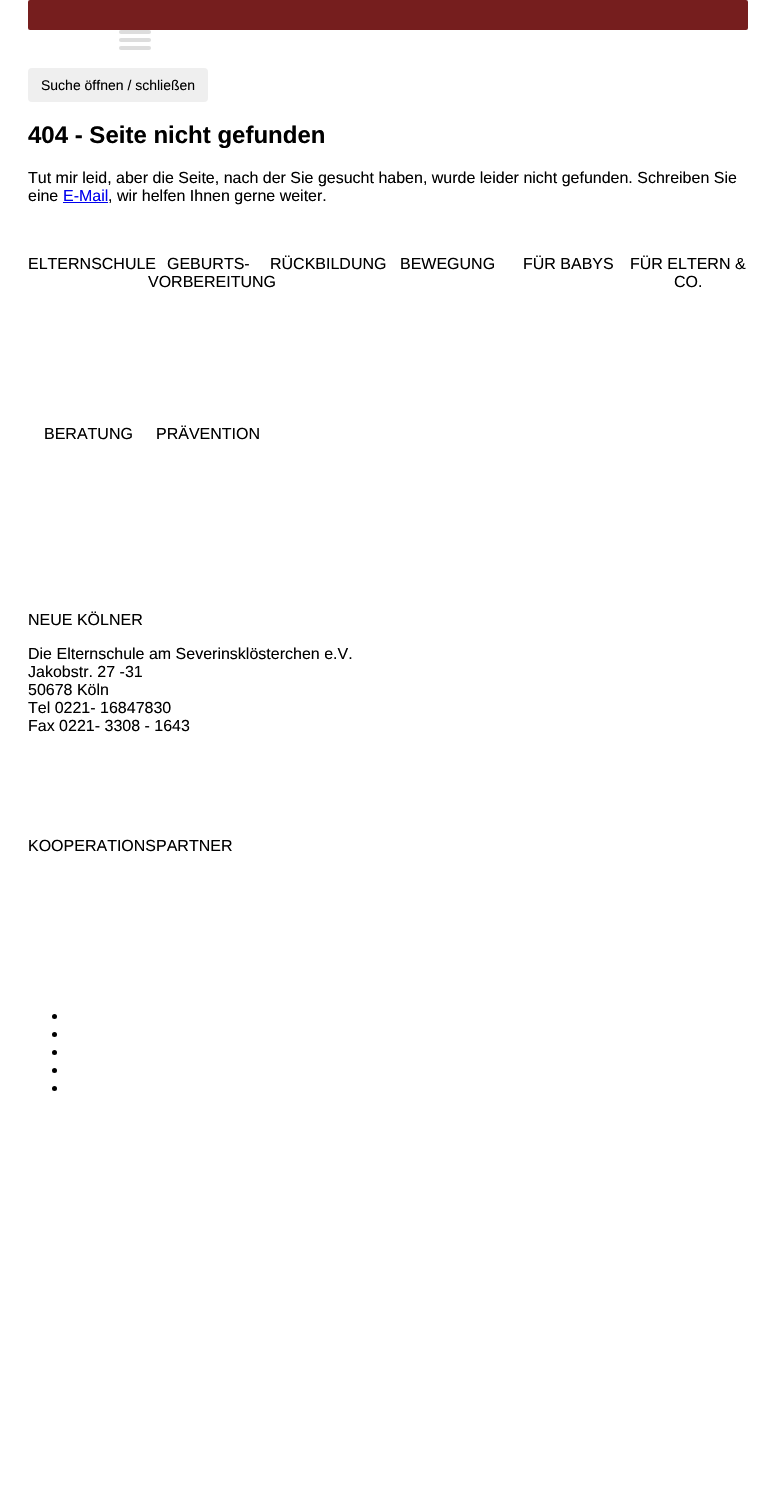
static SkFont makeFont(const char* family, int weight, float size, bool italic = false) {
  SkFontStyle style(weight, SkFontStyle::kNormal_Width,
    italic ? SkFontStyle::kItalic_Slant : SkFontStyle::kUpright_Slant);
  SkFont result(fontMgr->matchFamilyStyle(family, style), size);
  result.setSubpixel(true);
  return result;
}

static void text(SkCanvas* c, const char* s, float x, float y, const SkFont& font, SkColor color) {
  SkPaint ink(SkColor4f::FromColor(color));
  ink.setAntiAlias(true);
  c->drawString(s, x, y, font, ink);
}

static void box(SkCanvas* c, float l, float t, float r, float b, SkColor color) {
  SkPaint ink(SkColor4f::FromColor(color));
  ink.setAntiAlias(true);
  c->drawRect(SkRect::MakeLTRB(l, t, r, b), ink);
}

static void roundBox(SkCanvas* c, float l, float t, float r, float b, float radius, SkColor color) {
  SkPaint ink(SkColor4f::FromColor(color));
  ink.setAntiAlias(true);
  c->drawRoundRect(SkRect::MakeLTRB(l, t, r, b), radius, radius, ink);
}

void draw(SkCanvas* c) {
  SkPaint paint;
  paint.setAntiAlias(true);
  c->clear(0xffffffff);
  roundBox(c, 28, 0, 748, 30, 2, 0xff761e1e);
  roundBox(c, 119, 30, 151, 34, 2, 0xffdddddd);
  roundBox(c, 119, 38, 151, 42, 2, 0xffdddddd);
  roundBox(c, 119, 46, 151, 50, 2, 0xffdddddd);
  roundBox(c, 28, 68, 208, 102, 4, 0xffefefef);
  SkFont face1 = makeFont("Liberation Sans", 400, 14);
  text(c, "Suche öffnen / schließen", 41, 90, face1, 0xff000000);
  SkFont face2 = makeFont("Liberation Sans", 700, 24);
  text(c, "404 - Seite nicht gefunden", 28, 143, face2, 0xff000000);
  SkFont face3 = makeFont("Liberation Sans", 400, 16);
  text(c, "Tut mir leid, aber die Seite, nach der Sie gesucht haben, wurde leider nicht gefunden. Schreiben Sie", 28, 183, face3, 0xff000000);
  text(c, "eine", 28, 201, face3, 0xff000000);
  text(c, "E-Mail", 63, 201, face3, 0xff0000ee);
  box(c, 63, 202, 108, 203, 0xff0000ee);
  text(c, ", wir helfen Ihnen gerne weiter.", 108, 201, face3, 0xff000000);
  text(c, "ELTERNSCHULE", 28, 269, face3, 0xff000000);
  text(c, "GEBURTS-", 167, 269, face3, 0xff000000);
  text(c, "VORBEREITUNG", 148, 287, face3, 0xff000000);
  text(c, "RÜCKBILDUNG", 270, 269, face3, 0xff000000);
  text(c, "BEWEGUNG", 400, 269, face3, 0xff000000);
  text(c, "FÜR BABYS", 523, 269, face3, 0xff000000);
  text(c, "FÜR ELTERN &", 630, 269, face3, 0xff000000);
  text(c, "CO.", 674, 287, face3, 0xff000000);
  text(c, "BERATUNG", 44, 439, face3, 0xff000000);
  text(c, "PRÄVENTION", 156, 439, face3, 0xff000000);
  text(c, "NEUE KÖLNER", 28, 625, face3, 0xff000000);
  text(c, "Die Elternschule am Severinsklösterchen e.V.", 28, 659, face3, 0xff000000);
  text(c, "Jakobstr. 27 -31", 28, 677, face3, 0xff000000);
  text(c, "50678 Köln", 28, 695, face3, 0xff000000);
  text(c, "Tel 0221- 16847830", 28, 713, face3, 0xff000000);
  text(c, "Fax 0221- 3308 - 1643", 28, 731, face3, 0xff000000);
  text(c, "KOOPERATIONSPARTNER", 28, 851, face3, 0xff000000);
  paint.setColor(0xff000000);
  c->drawCircle(54.5f, 1016.5f, 2.5f, paint);
  c->drawCircle(54.5f, 1034.5f, 2.5f, paint);
  c->drawCircle(54.5f, 1052.5f, 2.5f, paint);
  c->drawCircle(54.5f, 1070.5f, 2.5f, paint);
  c->drawCircle(54.5f, 1088.5f, 2.5f, paint);
}
